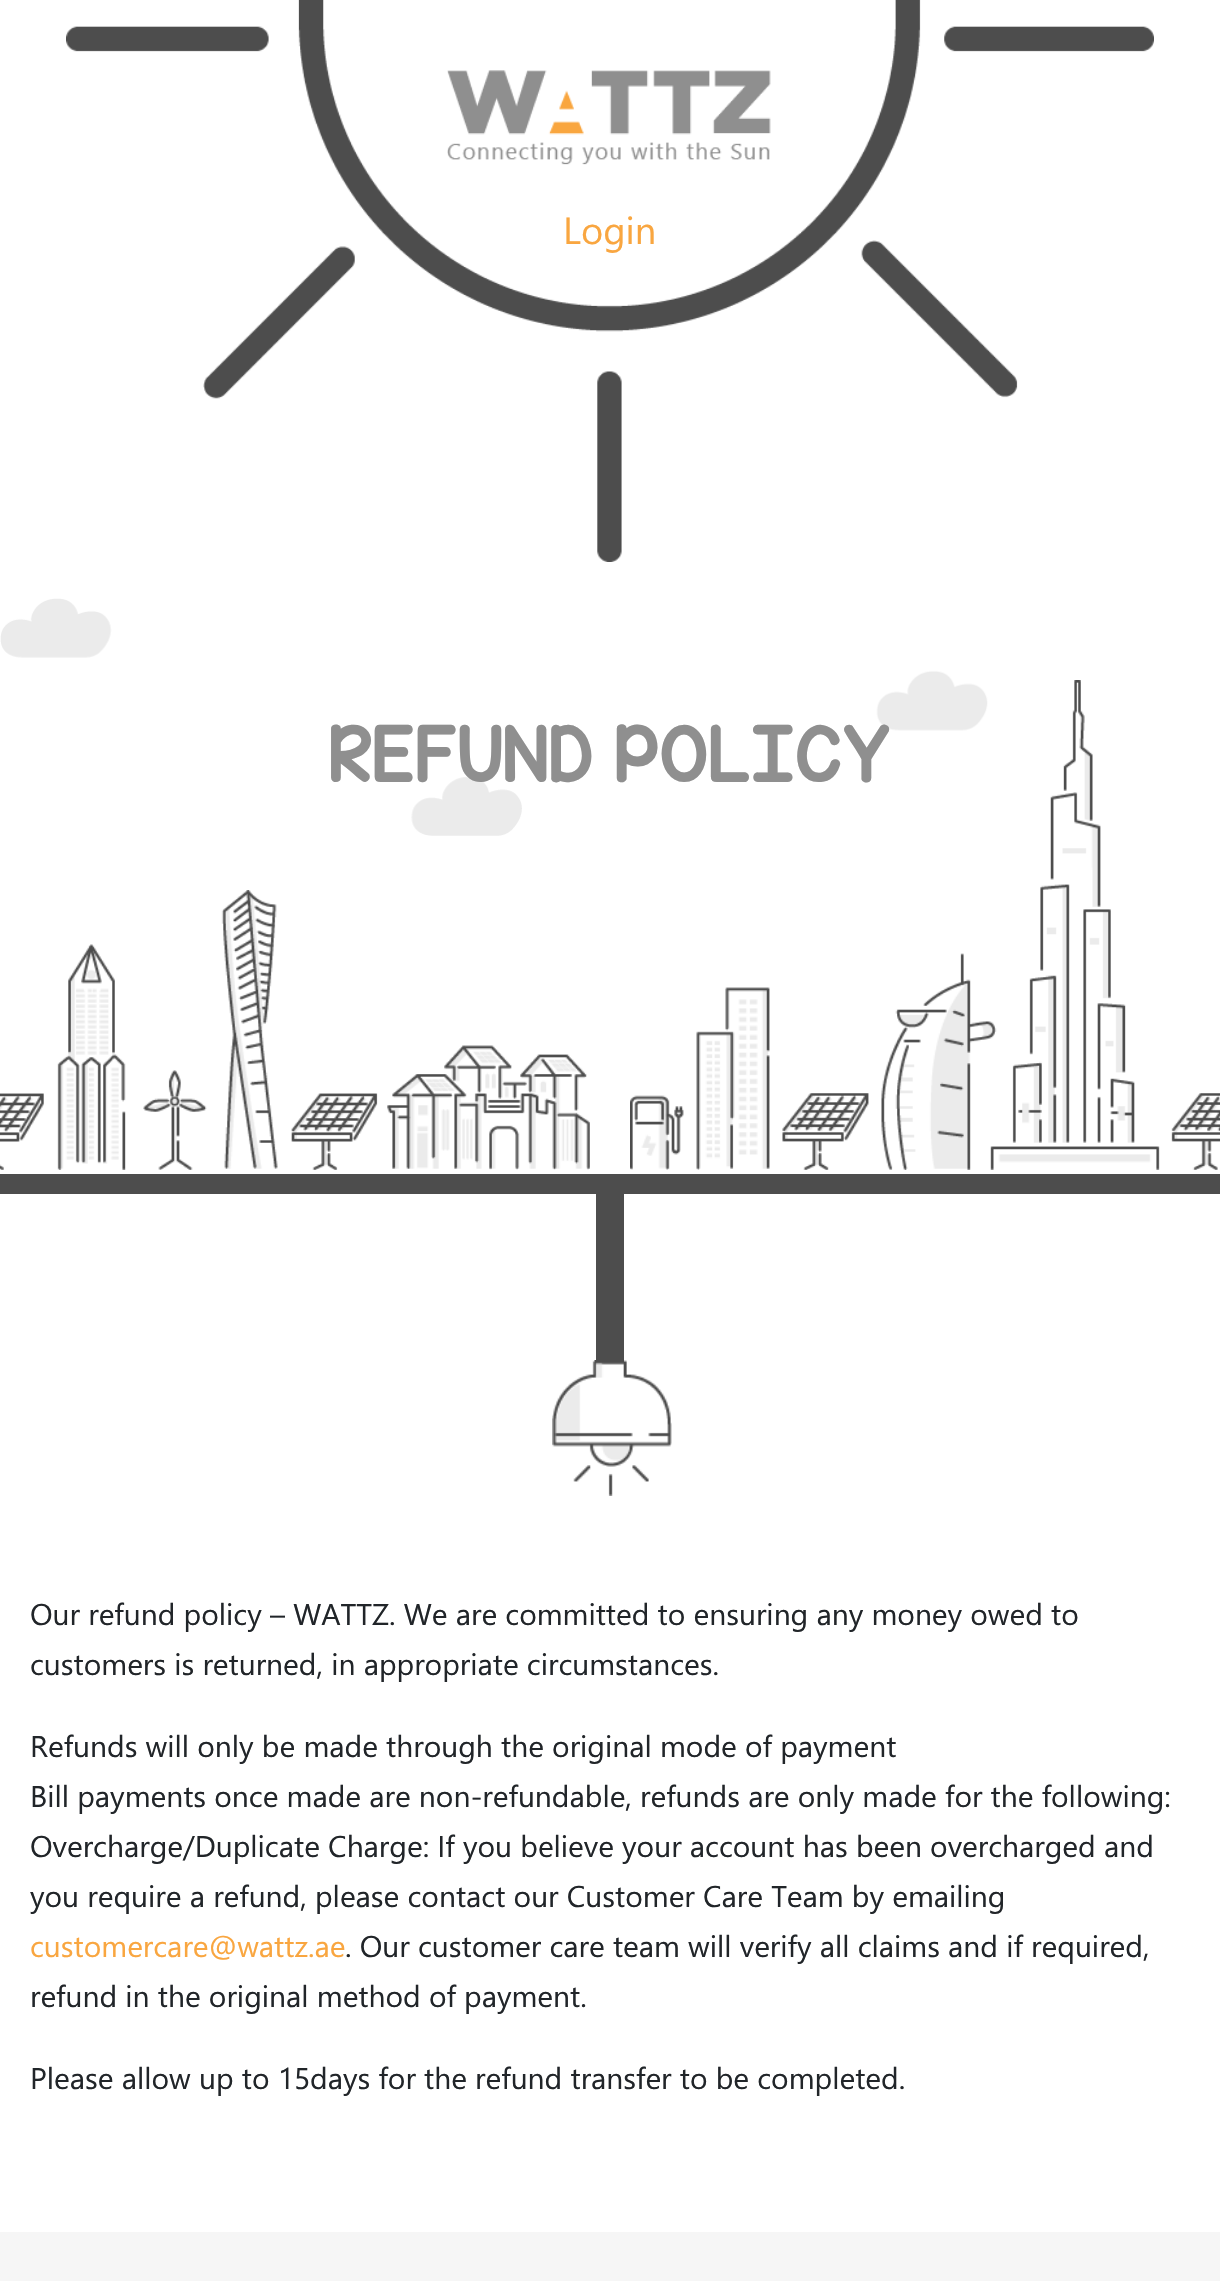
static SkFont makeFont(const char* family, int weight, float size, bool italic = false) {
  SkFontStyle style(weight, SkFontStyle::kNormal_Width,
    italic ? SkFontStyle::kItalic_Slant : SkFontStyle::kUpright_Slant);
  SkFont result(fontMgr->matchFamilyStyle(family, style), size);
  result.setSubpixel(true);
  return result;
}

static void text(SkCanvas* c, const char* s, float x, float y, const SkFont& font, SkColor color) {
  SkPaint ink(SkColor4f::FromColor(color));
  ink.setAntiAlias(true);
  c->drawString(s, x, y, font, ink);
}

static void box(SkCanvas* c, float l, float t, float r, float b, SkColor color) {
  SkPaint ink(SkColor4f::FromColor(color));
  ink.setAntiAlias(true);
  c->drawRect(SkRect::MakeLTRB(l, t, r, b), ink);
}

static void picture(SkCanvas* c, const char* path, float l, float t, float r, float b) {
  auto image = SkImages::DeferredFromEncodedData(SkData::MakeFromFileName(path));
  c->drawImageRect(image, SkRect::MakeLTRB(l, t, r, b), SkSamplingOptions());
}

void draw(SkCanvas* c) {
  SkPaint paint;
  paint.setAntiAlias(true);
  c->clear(0xffffffff);
  picture(c, "img_01.png", 66, 0, 1154, 562);
  picture(c, "img_02.png", 447, 70, 771, 165);
  SkFont face1 = makeFont("Segoe UI", 400, 38);
  text(c, "Login", 563, 244, face1, 0xfff9a640);
  picture(c, "img_03.png", 0, 598, 988, 836);
  picture(c, "img_04.png", 0, 890, 590, 1170);
  picture(c, "img_05.png", 630, 680, 1220, 1170);
  box(c, 0, 1174, 1220, 1194, 0xff4d4d4d);
  SkFont face2 = makeFont("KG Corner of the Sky", 400, 64);
  text(c, "REFUND POLICY", 329, 782, face2, 0xff8f8f8f);
  box(c, 596, 1194, 624, 1362, 0xff4d4d4d);
  picture(c, "img_06.png", 552, 1360, 672, 1496);
  SkFont face3 = makeFont("Segoe UI", 400, 30);
  text(c, "Our refund policy – WATTZ. We are committed to ensuring any money owed to", 30, 1625, face3, 0xff212529);
  text(c, "customers is returned, in appropriate circumstances.", 30, 1675, face3, 0xff212529);
  text(c, "Refunds will only be made through the original mode of payment", 30, 1757, face3, 0xff212529);
  text(c, "Bill payments once made are non-refundable, refunds are only made for the following:", 30, 1807, face3, 0xff212529);
  text(c, "Overcharge/Duplicate Charge: If you believe your account has been overcharged and", 30, 1857, face3, 0xff212529);
  text(c, "you require a refund, please contact our Customer Care Team by emailing", 30, 1907, face3, 0xff212529);
  text(c, "customercare@wattz.ae", 30, 1957, face3, 0xfff9a640);
  text(c, ". Our customer care team will verify all claims and if required,", 345, 1957, face3, 0xff212529);
  text(c, "refund in the original method of payment.", 30, 2007, face3, 0xff212529);
  text(c, "Please allow up to 15days for the refund transfer to be completed.", 30, 2089, face3, 0xff212529);
  box(c, 0, 2232, 1220, 2281, 0xfff6f6f6);
}
